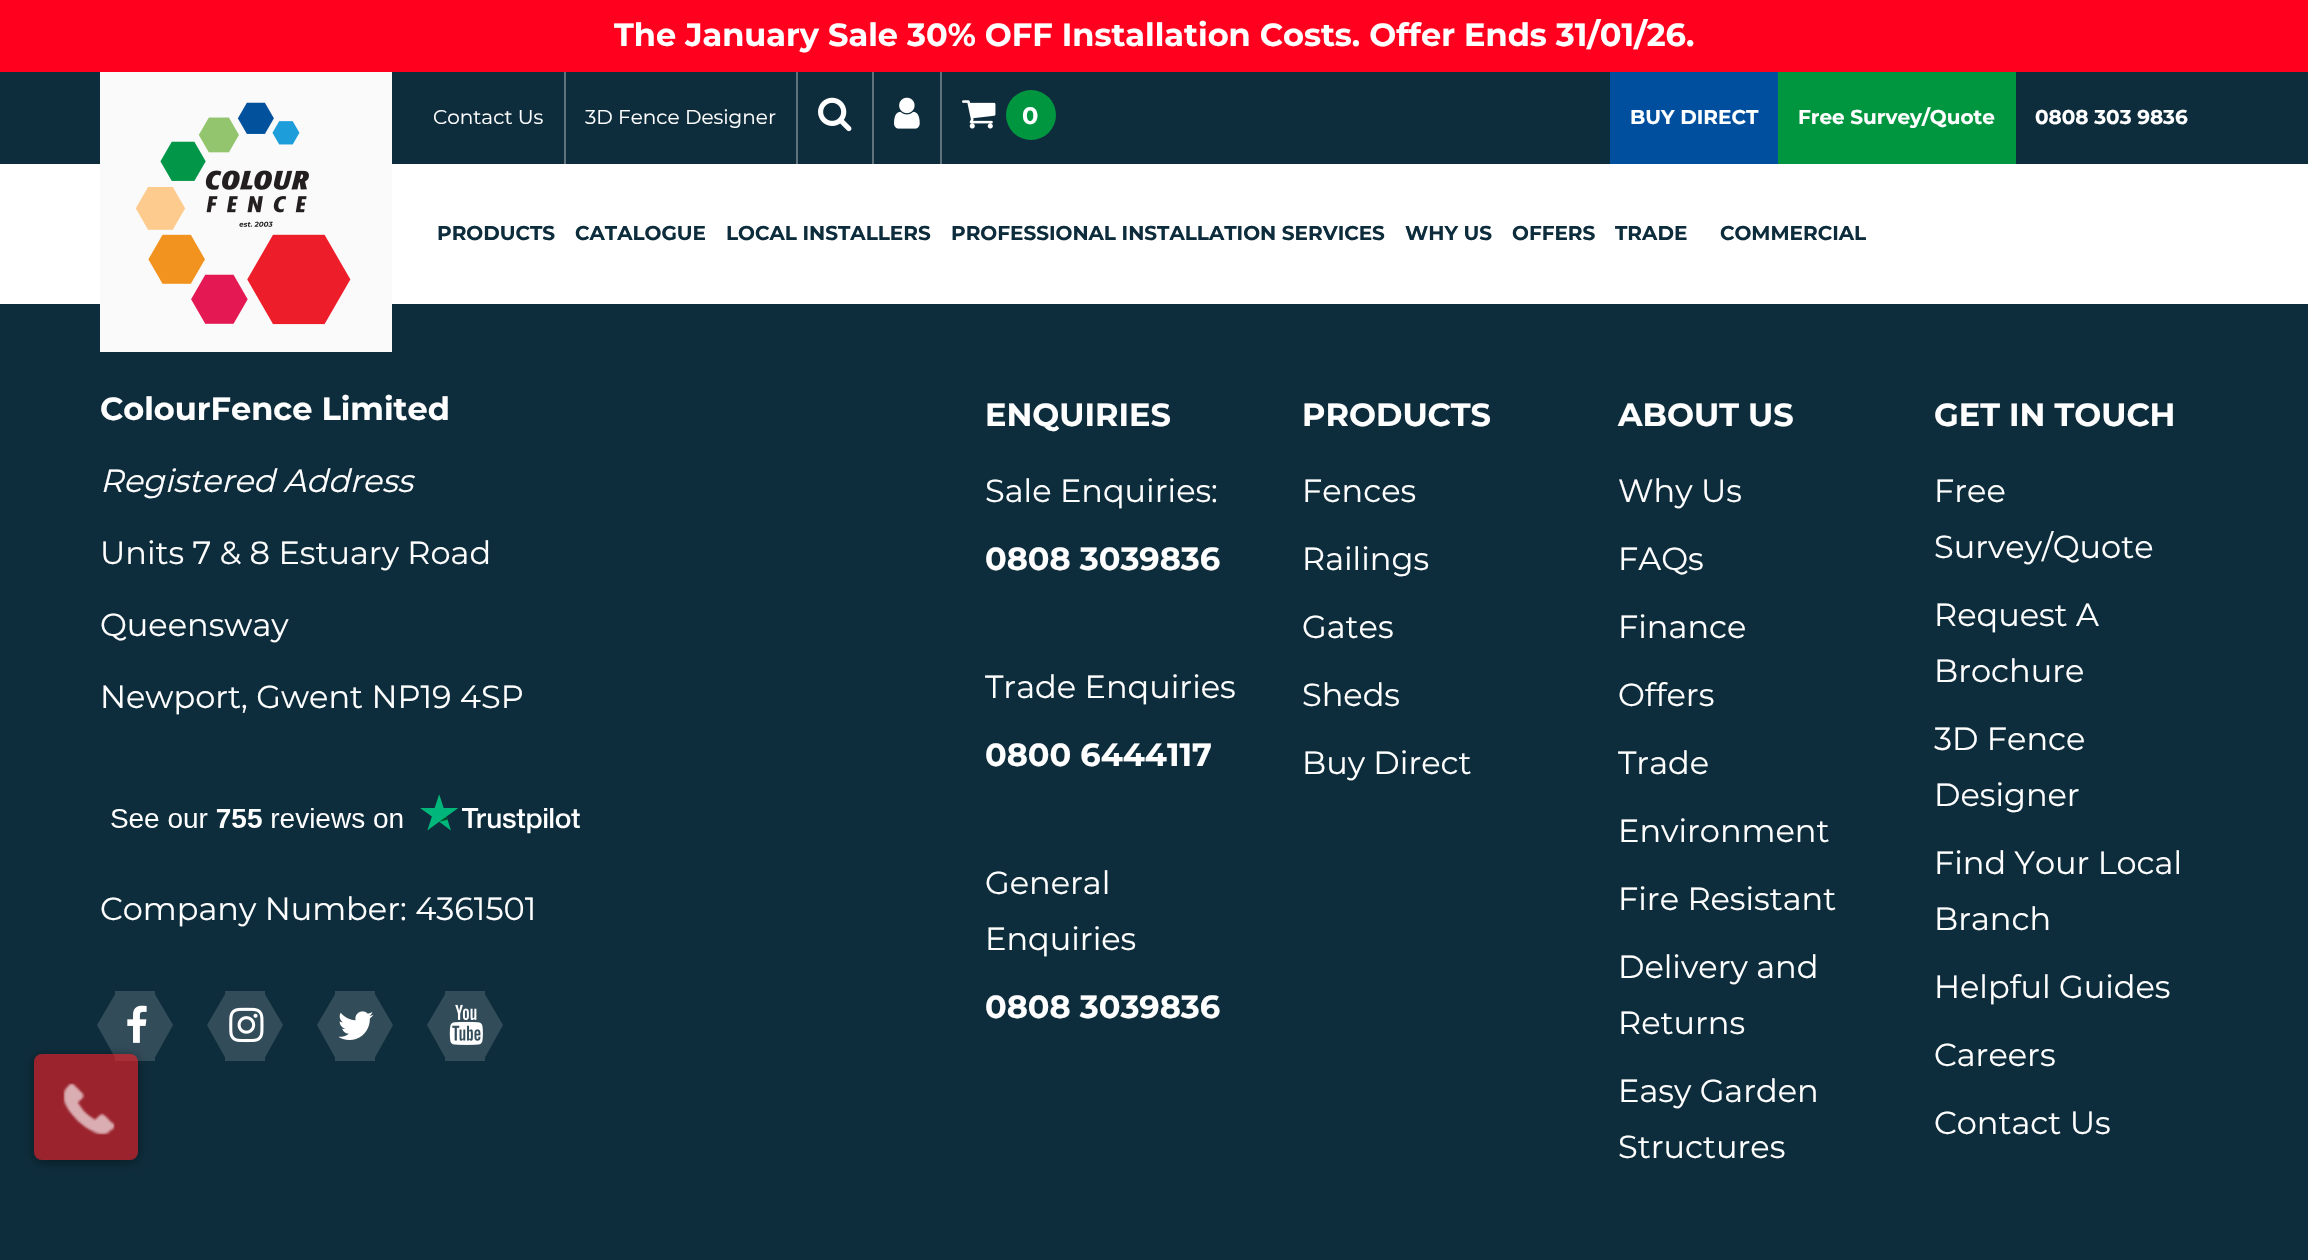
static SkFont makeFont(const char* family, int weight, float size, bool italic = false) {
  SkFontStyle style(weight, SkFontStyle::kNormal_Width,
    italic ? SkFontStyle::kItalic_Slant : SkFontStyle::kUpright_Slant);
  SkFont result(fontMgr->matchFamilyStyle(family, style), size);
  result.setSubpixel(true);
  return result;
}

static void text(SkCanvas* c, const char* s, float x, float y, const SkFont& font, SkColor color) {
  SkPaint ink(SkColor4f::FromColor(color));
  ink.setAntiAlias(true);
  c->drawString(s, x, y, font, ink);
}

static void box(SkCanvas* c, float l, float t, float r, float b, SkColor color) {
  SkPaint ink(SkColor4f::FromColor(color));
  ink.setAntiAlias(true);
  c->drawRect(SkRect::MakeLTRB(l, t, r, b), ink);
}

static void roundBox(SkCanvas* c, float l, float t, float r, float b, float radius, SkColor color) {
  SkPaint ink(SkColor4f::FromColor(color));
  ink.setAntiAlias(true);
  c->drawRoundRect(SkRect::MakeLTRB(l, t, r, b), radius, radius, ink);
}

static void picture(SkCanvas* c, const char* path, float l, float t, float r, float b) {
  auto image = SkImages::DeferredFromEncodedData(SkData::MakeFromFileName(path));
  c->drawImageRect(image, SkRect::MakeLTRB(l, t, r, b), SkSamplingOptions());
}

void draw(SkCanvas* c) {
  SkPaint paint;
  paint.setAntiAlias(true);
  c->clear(0xff0e2d3c);
  box(c, 115, 991, 155, 1061, 0xff324c59);
  paint.setColor(0xff324c59);
  c->drawPath(SkPathBuilder().moveTo(117, 991).lineTo(117, 1061).lineTo(97, 1025).close().detach(), paint);
  picture(c, "img_07.png", 127, 1005, 147, 1043);
  c->drawPath(SkPathBuilder().moveTo(153, 1061).lineTo(153, 991).lineTo(173, 1025).close().detach(), paint);
  c->save();
  c->clipPath(SkPathBuilder(SkPathFillType::kEvenOdd).moveTo(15, 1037).lineTo(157, 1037).lineTo(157, 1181).lineTo(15, 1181).close().moveTo(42, 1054).lineTo(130, 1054).cubicTo(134.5f, 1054, 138, 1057.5f, 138, 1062).lineTo(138, 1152).cubicTo(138, 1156.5f, 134.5f, 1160, 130, 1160).lineTo(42, 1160).cubicTo(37.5f, 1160, 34, 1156.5f, 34, 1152).lineTo(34, 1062).cubicTo(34, 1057.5f, 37.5f, 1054, 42, 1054).close().detach(), true);
  paint.setColor(0x69000000);
  paint.setMaskFilter(SkMaskFilter::MakeBlur(kNormal_SkBlurStyle, 6));
  c->drawRoundRect(SkRect::MakeLTRB(34, 1056, 138, 1162), 8, 8, paint);
  paint.setMaskFilter(nullptr);
  c->restore();
  roundBox(c, 34, 1054, 138, 1160, 8, 0xa1ec1d25);
  picture(c, "img_01.png", 63, 1083, 115, 1135);
  box(c, 0, 0, 2308, 72, 0xffff001e);
  SkFont face1 = makeFont("Montserrat", 700, 32);
  text(c, "The January Sale 30% OFF Installation Costs. Offer Ends 31/01/26.", 614, 46, face1, 0xffffffff);
  box(c, 0, 164, 2308, 304, 0xffffffff);
  box(c, 100, 72, 392, 352, 0xfffafafa);
  picture(c, "img_02.png", 135, 102, 351, 325);
  SkFont face2 = makeFont("Montserrat", 400, 20);
  text(c, "Contact Us", 433, 124, face2, 0xffffffff);
  box(c, 564, 72, 566, 164, 0xff60737c);
  text(c, "3D Fence Designer", 585, 124, face2, 0xffffffff);
  box(c, 796, 72, 798, 164, 0xff60737c);
  picture(c, "img_03.png", 818, 97, 852, 132);
  box(c, 872, 72, 874, 164, 0xff60737c);
  picture(c, "img_04.png", 894, 97, 920, 129);
  box(c, 940, 72, 942, 164, 0xff60737c);
  picture(c, "img_05.png", 962, 100, 996, 129);
  paint.setColor(0xff009640);
  c->drawCircle(1031, 115, 25, paint);
  SkFont face3 = makeFont("Montserrat", 700, 24);
  text(c, "0", 1022, 124, face3, 0xffffffff);
  box(c, 1610, 72, 1778, 164, 0xff004f9f);
  SkFont face4 = makeFont("Montserrat", 700, 20);
  text(c, "BUY DIRECT", 1630, 124, face4, 0xffffffff);
  box(c, 1778, 72, 2016, 164, 0xff009640);
  text(c, "Free Survey/Quote", 1798, 124, face4, 0xffffffff);
  text(c, "0808 303 9836", 2035, 124, face4, 0xffffffff);
  text(c, "PRODUCTS", 437, 240, face4, 0xff0e2d3c);
  text(c, "CATALOGUE", 575, 240, face4, 0xff0e2d3c);
  text(c, "LOCAL INSTALLERS", 726, 240, face4, 0xff0e2d3c);
  text(c, "PROFESSIONAL INSTALLATION SERVICES", 951, 240, face4, 0xff0e2d3c);
  text(c, "WHY US", 1405, 240, face4, 0xff0e2d3c);
  text(c, "OFFERS", 1512, 240, face4, 0xff0e2d3c);
  text(c, "TRADE", 1615, 240, face4, 0xff0e2d3c);
  text(c, "COMMERCIAL", 1720, 240, face4, 0xff0e2d3c);
  text(c, "ColourFence Limited", 100, 420, face1, 0xffffffff);
  SkFont face5 = makeFont("Montserrat", 400, 32, true);
  text(c, "Registered Address", 100, 492, face5, 0xffffffff);
  SkFont face6 = makeFont("Montserrat", 400, 32);
  text(c, "Units 7 & 8 Estuary Road", 100, 564, face6, 0xffffffff);
  text(c, "Queensway", 100, 636, face6, 0xffffffff);
  text(c, "Newport, Gwent NP19 4SP", 100, 708, face6, 0xffffffff);
  picture(c, "img_06.png", 111, 794, 580, 834);
  text(c, "Company Number: 4361501", 100, 920, face6, 0xffffffff);
  box(c, 225, 991, 265, 1061, 0xff324c59);
  paint.setColor(0xff324c59);
  c->drawPath(SkPathBuilder().moveTo(227, 991).lineTo(227, 1061).lineTo(207, 1025).close().detach(), paint);
  c->drawPath(SkPathBuilder().moveTo(263, 1061).lineTo(263, 991).lineTo(283, 1025).close().detach(), paint);
  picture(c, "img_08.png", 229, 1007, 264, 1043);
  box(c, 335, 991, 375, 1061, 0xff324c59);
  c->drawPath(SkPathBuilder().moveTo(337, 991).lineTo(337, 1061).lineTo(317, 1025).close().detach(), paint);
  c->drawPath(SkPathBuilder().moveTo(373, 1061).lineTo(373, 991).lineTo(393, 1025).close().detach(), paint);
  picture(c, "img_09.png", 338, 1011, 374, 1040);
  box(c, 445, 991, 485, 1061, 0xff324c59);
  c->drawPath(SkPathBuilder().moveTo(447, 991).lineTo(447, 1061).lineTo(427, 1025).close().detach(), paint);
  picture(c, "img_10.png", 449, 1004, 483, 1045);
  c->drawPath(SkPathBuilder().moveTo(483, 1061).lineTo(483, 991).lineTo(503, 1025).close().detach(), paint);
  text(c, "ENQUIRIES", 985, 426, face1, 0xffffffff);
  text(c, "Sale Enquiries:", 985, 502, face6, 0xffffffff);
  text(c, "0808 3039836", 985, 570, face1, 0xffffffff);
  text(c, "Trade Enquiries", 985, 698, face6, 0xffffffff);
  text(c, "0800 6444117", 985, 766, face1, 0xffffffff);
  text(c, "General", 985, 894, face6, 0xffffffff);
  text(c, "Enquiries", 985, 950, face6, 0xffffffff);
  text(c, "0808 3039836", 985, 1018, face1, 0xffffffff);
  text(c, "PRODUCTS", 1302, 426, face1, 0xffffffff);
  text(c, "Fences", 1302, 502, face6, 0xffffffff);
  text(c, "Railings", 1302, 570, face6, 0xffffffff);
  text(c, "Gates", 1302, 638, face6, 0xffffffff);
  text(c, "Sheds", 1302, 706, face6, 0xffffffff);
  text(c, "Buy Direct", 1302, 774, face6, 0xffffffff);
  text(c, "ABOUT US", 1618, 426, face1, 0xffffffff);
  text(c, "Why Us", 1618, 502, face6, 0xffffffff);
  text(c, "FAQs", 1618, 570, face6, 0xffffffff);
  text(c, "Finance", 1618, 638, face6, 0xffffffff);
  text(c, "Offers", 1618, 706, face6, 0xffffffff);
  text(c, "Trade", 1618, 774, face6, 0xffffffff);
  text(c, "Environment", 1618, 842, face6, 0xffffffff);
  text(c, "Fire Resistant", 1618, 910, face6, 0xffffffff);
  text(c, "Delivery and", 1618, 978, face6, 0xffffffff);
  text(c, "Returns", 1618, 1034, face6, 0xffffffff);
  text(c, "Easy Garden", 1618, 1102, face6, 0xffffffff);
  text(c, "Structures", 1618, 1158, face6, 0xffffffff);
  text(c, "GET IN TOUCH", 1934, 426, face1, 0xffffffff);
  text(c, "Free", 1934, 502, face6, 0xffffffff);
  text(c, "Survey/Quote", 1934, 558, face6, 0xffffffff);
  text(c, "Request A", 1934, 626, face6, 0xffffffff);
  text(c, "Brochure", 1934, 682, face6, 0xffffffff);
  text(c, "3D Fence", 1934, 750, face6, 0xffffffff);
  text(c, "Designer", 1934, 806, face6, 0xffffffff);
  text(c, "Find Your Local", 1934, 874, face6, 0xffffffff);
  text(c, "Branch", 1934, 930, face6, 0xffffffff);
  text(c, "Helpful Guides", 1934, 998, face6, 0xffffffff);
  text(c, "Careers", 1934, 1066, face6, 0xffffffff);
  text(c, "Contact Us", 1934, 1134, face6, 0xffffffff);
}
